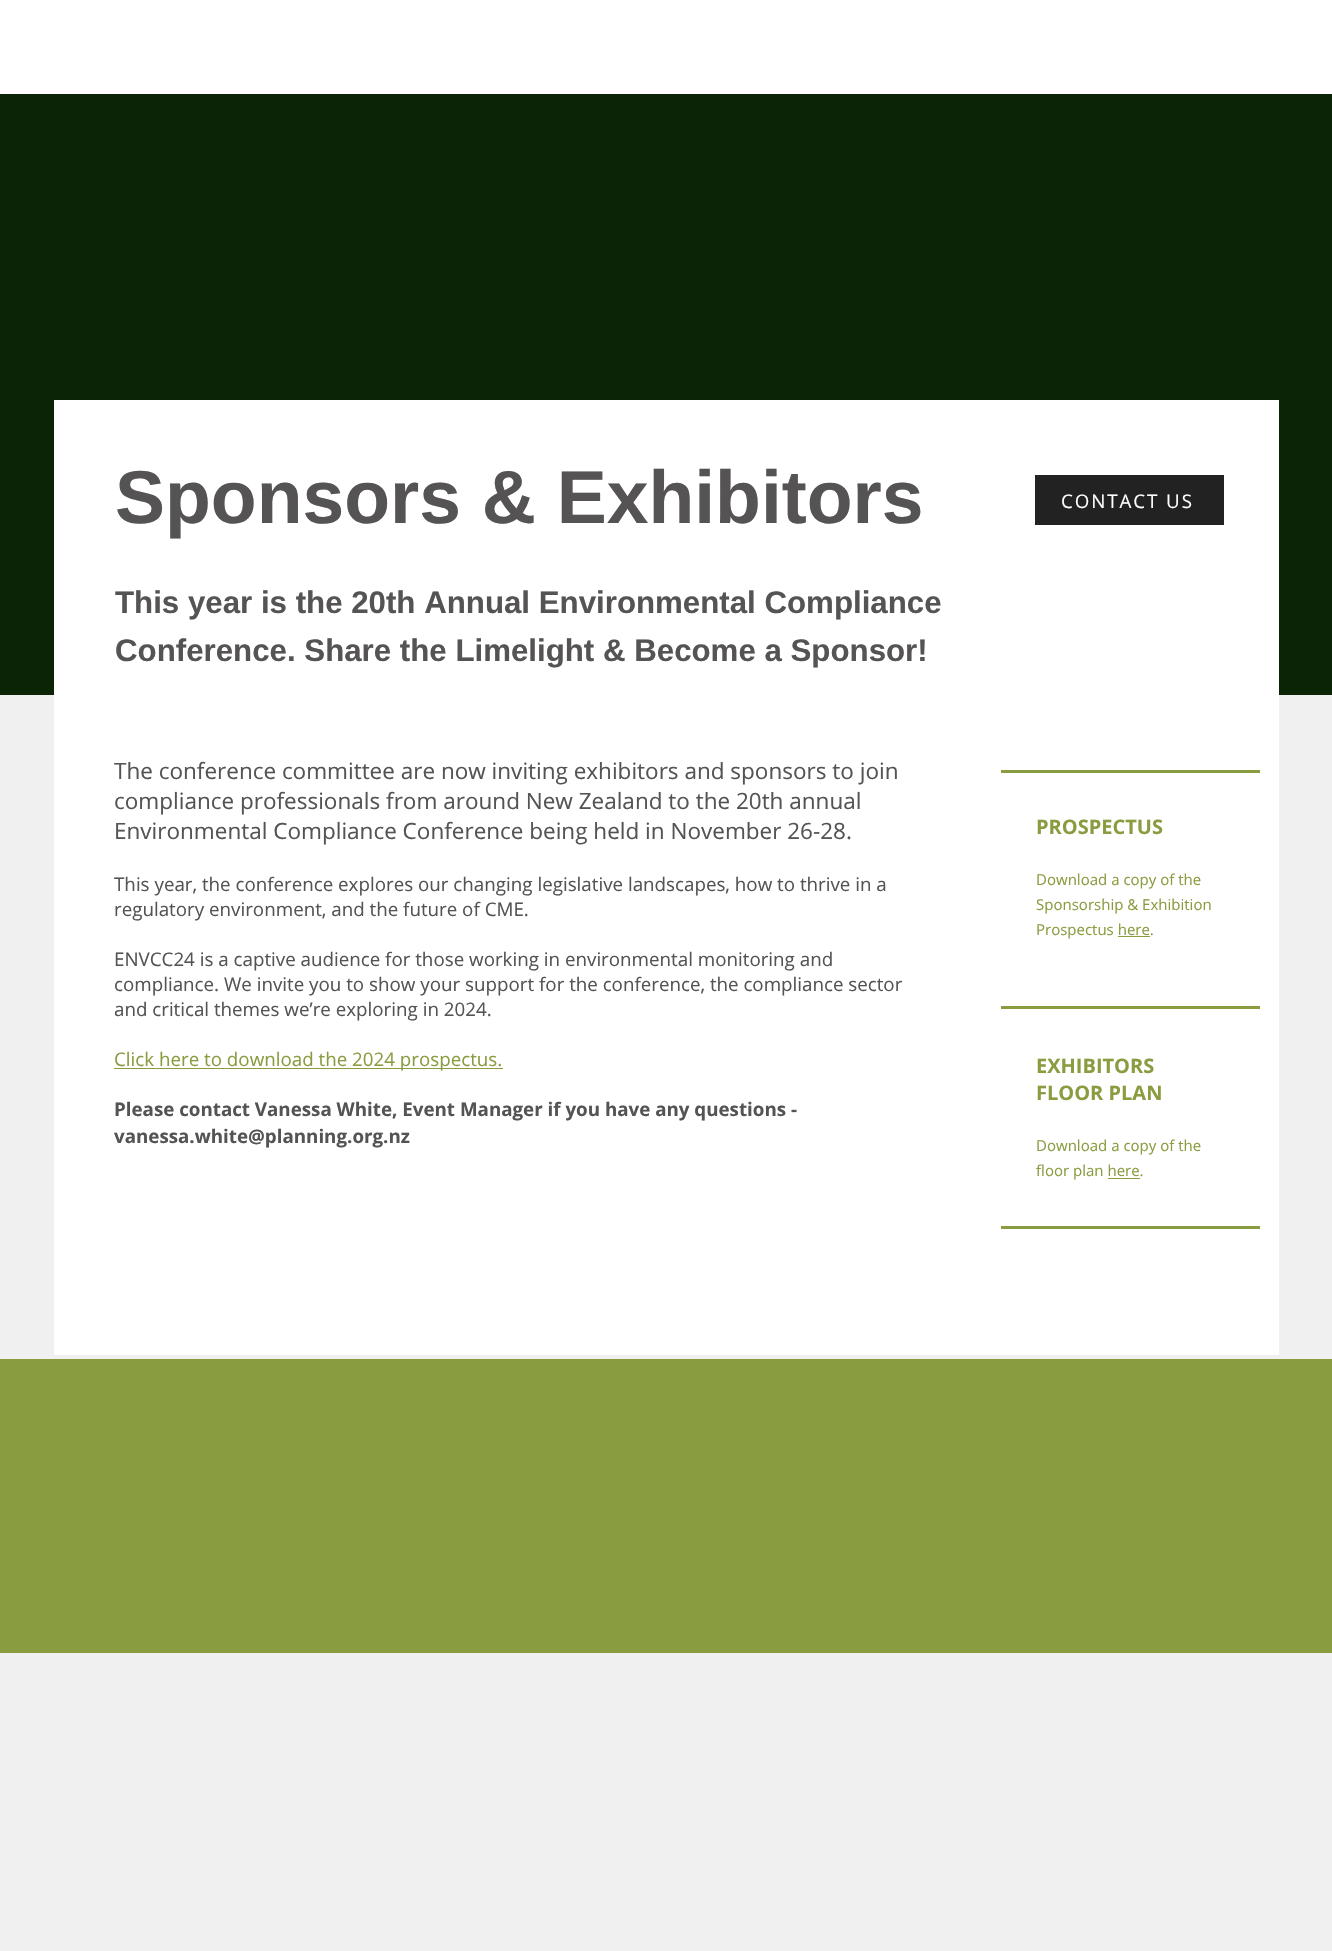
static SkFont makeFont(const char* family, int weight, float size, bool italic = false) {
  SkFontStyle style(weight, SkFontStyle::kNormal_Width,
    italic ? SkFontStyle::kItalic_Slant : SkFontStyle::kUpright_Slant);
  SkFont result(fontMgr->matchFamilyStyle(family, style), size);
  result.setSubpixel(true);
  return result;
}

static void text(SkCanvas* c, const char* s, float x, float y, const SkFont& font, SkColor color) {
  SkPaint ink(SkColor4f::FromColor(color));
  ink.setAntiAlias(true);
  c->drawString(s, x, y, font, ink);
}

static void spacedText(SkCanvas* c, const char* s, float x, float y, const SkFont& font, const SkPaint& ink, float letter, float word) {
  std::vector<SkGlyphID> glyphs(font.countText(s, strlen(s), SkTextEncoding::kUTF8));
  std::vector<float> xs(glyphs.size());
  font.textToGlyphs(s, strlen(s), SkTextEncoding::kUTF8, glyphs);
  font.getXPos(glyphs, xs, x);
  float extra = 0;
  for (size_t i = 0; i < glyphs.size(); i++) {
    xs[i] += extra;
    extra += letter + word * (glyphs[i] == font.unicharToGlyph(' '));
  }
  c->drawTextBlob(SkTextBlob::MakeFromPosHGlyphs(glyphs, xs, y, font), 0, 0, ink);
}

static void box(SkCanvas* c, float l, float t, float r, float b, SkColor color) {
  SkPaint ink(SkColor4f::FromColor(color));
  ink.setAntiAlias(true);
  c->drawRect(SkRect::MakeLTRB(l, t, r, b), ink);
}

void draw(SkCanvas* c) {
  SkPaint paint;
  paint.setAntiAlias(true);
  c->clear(0xfff0f0f0);
  box(c, 0, 0, 1332, 94, 0xffffffff);
  box(c, 0, 94, 1332, 695, 0xff0a2405);
  box(c, 54, 400, 1279, 1355, 0xffffffff);
  SkFont face1 = makeFont("Liberation Sans", 700, 75);
  text(c, "Sponsors & Exhibitors", 115, 523, face1, 0xff555353);
  SkFont face2 = makeFont("Liberation Sans", 700, 31.25f);
  text(c, "This year is the 20th Annual Environmental Compliance", 115, 613, face2, 0xff555353);
  text(c, "Conference. Share the Limelight & Become a Sponsor!", 115, 661, face2, 0xff555353);
  box(c, 1035, 475, 1224, 525, 0xff222222);
  SkFont face3 = makeFont("Open Sans", 400, 18.75f);
  paint.setColor(0xffffffff);
  spacedText(c, "CONTACT US", 1061, 508, face3, paint, 1.9f, 0);
  SkFont face4 = makeFont("Open Sans", 400, 22.5f);
  text(c, "The conference committee are now inviting exhibitors and sponsors to join", 114, 779, face4, 0xff555353);
  text(c, "compliance professionals from around New Zealand to the 20th annual", 114, 809, face4, 0xff555353);
  text(c, "Environmental Compliance Conference being held in November 26-28.", 114, 839, face4, 0xff555353);
  box(c, 1001, 770, 1260, 773, 0xff899c40);
  SkFont face5 = makeFont("Open Sans", 700, 20);
  text(c, "PROSPECTUS", 1036, 834, face5, 0xff899c40);
  SkFont face6 = makeFont("Open Sans", 400, 15);
  text(c, "Download a copy of the", 1036, 885, face6, 0xff899c40);
  text(c, "Sponsorship & Exhibition", 1036, 910, face6, 0xff899c40);
  text(c, "Prospectus here.", 1036, 935, face6, 0xff899c40);
  box(c, 1118, 936, 1150, 937, 0xff899c40);
  box(c, 1001, 1006, 1260, 1009, 0xff899c40);
  text(c, "EXHIBITORS", 1036, 1073, face5, 0xff899c40);
  text(c, "FLOOR PLAN", 1036, 1100, face5, 0xff899c40);
  text(c, "Download a copy of the", 1036, 1151, face6, 0xff899c40);
  text(c, "floor plan here.", 1036, 1176, face6, 0xff899c40);
  box(c, 1108, 1178, 1140, 1179, 0xff899c40);
  box(c, 1001, 1226, 1260, 1229, 0xff899c40);
  text(c, "This year, the conference explores our changing legislative landscapes, how to thrive in a", 114, 891, face3, 0xff555353);
  text(c, "regulatory environment, and the future of CME.", 114, 916, face3, 0xff555353);
  text(c, "ENVCC24 is a captive audience for those working in environmental monitoring and", 114, 966, face3, 0xff555353);
  text(c, "compliance. We invite you to show your support for the conference, the compliance sector", 114, 991, face3, 0xff555353);
  text(c, "and critical themes we’re exploring in 2024.", 114, 1016, face3, 0xff555353);
  box(c, 114, 1068, 503, 1069, 0xff899c40);
  text(c, "Click here to download the 2024 prospectus.", 114, 1066, face3, 0xff899c40);
  SkFont face7 = makeFont("Open Sans", 700, 18.75f);
  text(c, "Please contact Vanessa White, Event Manager if you have any questions -", 114, 1116, face7, 0xff555353);
  text(c, "vanessa.white@planning.org.nz", 114, 1143, face7, 0xff555353);
  box(c, 0, 1359, 1332, 1653, 0xff899c40);
}
